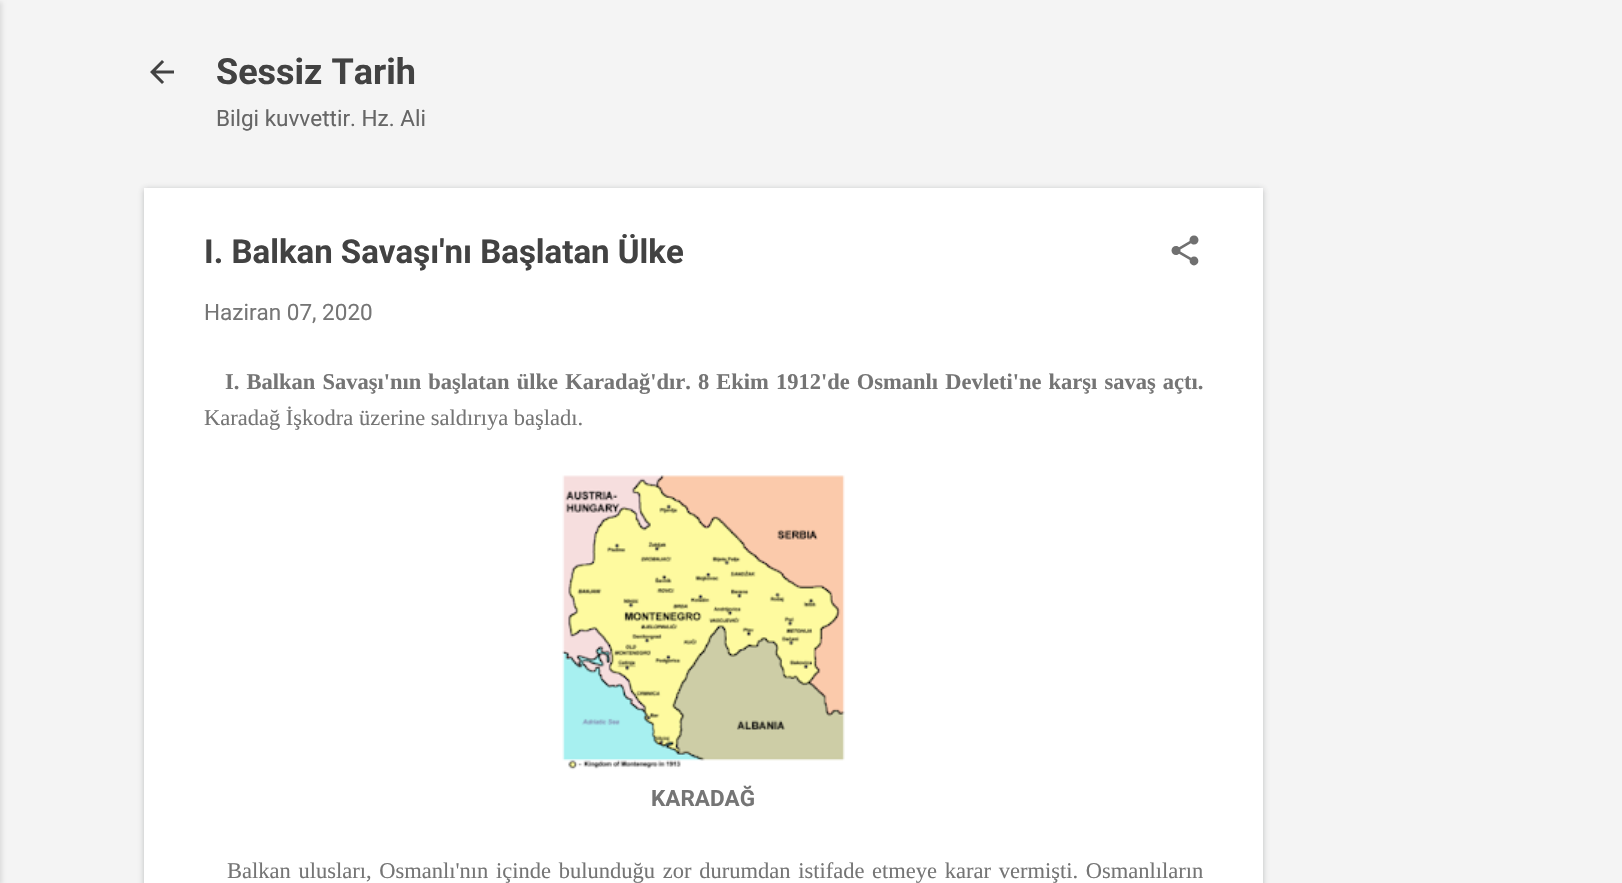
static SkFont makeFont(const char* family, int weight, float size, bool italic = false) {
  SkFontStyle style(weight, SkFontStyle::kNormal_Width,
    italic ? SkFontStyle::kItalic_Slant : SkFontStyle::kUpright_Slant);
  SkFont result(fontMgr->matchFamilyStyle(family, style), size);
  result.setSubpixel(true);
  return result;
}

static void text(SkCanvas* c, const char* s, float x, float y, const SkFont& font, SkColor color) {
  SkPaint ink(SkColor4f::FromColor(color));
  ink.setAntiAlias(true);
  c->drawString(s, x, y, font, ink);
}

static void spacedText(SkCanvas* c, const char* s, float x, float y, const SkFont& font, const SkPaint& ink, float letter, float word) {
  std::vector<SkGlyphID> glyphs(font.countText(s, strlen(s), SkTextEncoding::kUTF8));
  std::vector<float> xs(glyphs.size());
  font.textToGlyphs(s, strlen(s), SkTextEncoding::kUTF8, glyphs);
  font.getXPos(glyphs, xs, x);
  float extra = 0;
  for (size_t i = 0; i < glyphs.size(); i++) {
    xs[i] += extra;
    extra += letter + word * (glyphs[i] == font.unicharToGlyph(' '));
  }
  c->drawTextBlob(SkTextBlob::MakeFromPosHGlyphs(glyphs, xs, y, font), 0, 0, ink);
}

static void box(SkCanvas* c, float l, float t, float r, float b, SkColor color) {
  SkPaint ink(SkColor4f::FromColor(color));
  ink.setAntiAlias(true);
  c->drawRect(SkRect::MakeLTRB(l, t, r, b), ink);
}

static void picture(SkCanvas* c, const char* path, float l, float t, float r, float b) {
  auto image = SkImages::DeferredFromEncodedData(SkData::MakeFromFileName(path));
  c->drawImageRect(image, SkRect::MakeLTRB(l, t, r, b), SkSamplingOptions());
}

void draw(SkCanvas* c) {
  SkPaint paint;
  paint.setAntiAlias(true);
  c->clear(0xfff4f4f4);
  paint.setColor(0x1a000000);
  paint.setMaskFilter(SkMaskFilter::MakeBlur(kNormal_SkBlurStyle, 2));
  c->drawRect(SkRect::MakeLTRB(-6, 2, 2, 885), paint);
  paint.setMaskFilter(nullptr);
  picture(c, "img_01.png", 150, 60, 174, 84);
  SkFont face1 = makeFont("Roboto", 700, 36);
  text(c, "Sessiz Tarih", 216, 84, face1, 0xff424242);
  SkFont face2 = makeFont("Roboto", 400, 22.5f);
  text(c, "Bilgi kuvvettir. Hz. Ali", 216, 126, face2, 0xff666666);
  paint.setColor(0x4d3c4043);
  paint.setMaskFilter(SkMaskFilter::MakeBlur(kNormal_SkBlurStyle, 3));
  c->drawRect(SkRect::MakeLTRB(144, 189, 1263, 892), paint);
  paint.setMaskFilter(nullptr);
  box(c, 144, 188, 1263, 883, 0xffffffff);
  SkFont face3 = makeFont("Roboto", 700, 33);
  text(c, "I. Balkan Savaşı'nı Başlatan Ülke", 204, 263, face3, 0xff424242);
  picture(c, "img_02.png", 1171, 235, 1199, 266);
  text(c, "Haziran 07, 2020", 204, 320, face2, 0xff757575);
  SkFont face4 = makeFont("Liberation Serif", 700, 22.5f);
  paint.setColor(0xff757575);
  spacedText(c, "I. Balkan Savaşı'nın başlatan ülke Karadağ'dır. 8 Ekim 1912'de Osmanlı Devleti'ne karşı savaş açtı.", 225, 389, face4, paint, 0, 1.5f);
  SkFont face5 = makeFont("Liberation Serif", 400, 22.5f);
  text(c, "Karadağ İşkodra üzerine saldırıya başladı.", 204, 425, face5, 0xff757575);
  picture(c, "img_03.png", 562, 475, 845, 770);
  SkFont face6 = makeFont("Roboto", 700, 22.5f);
  text(c, "KARADAĞ", 651, 806, face6, 0xff757575);
  spacedText(c, "Balkan ulusları, Osmanlı'nın içinde bulunduğu zor durumdan istifade etmeye karar vermişti. Osmanlıların", 227, 878, face5, paint, 0, 2.1f);
}
